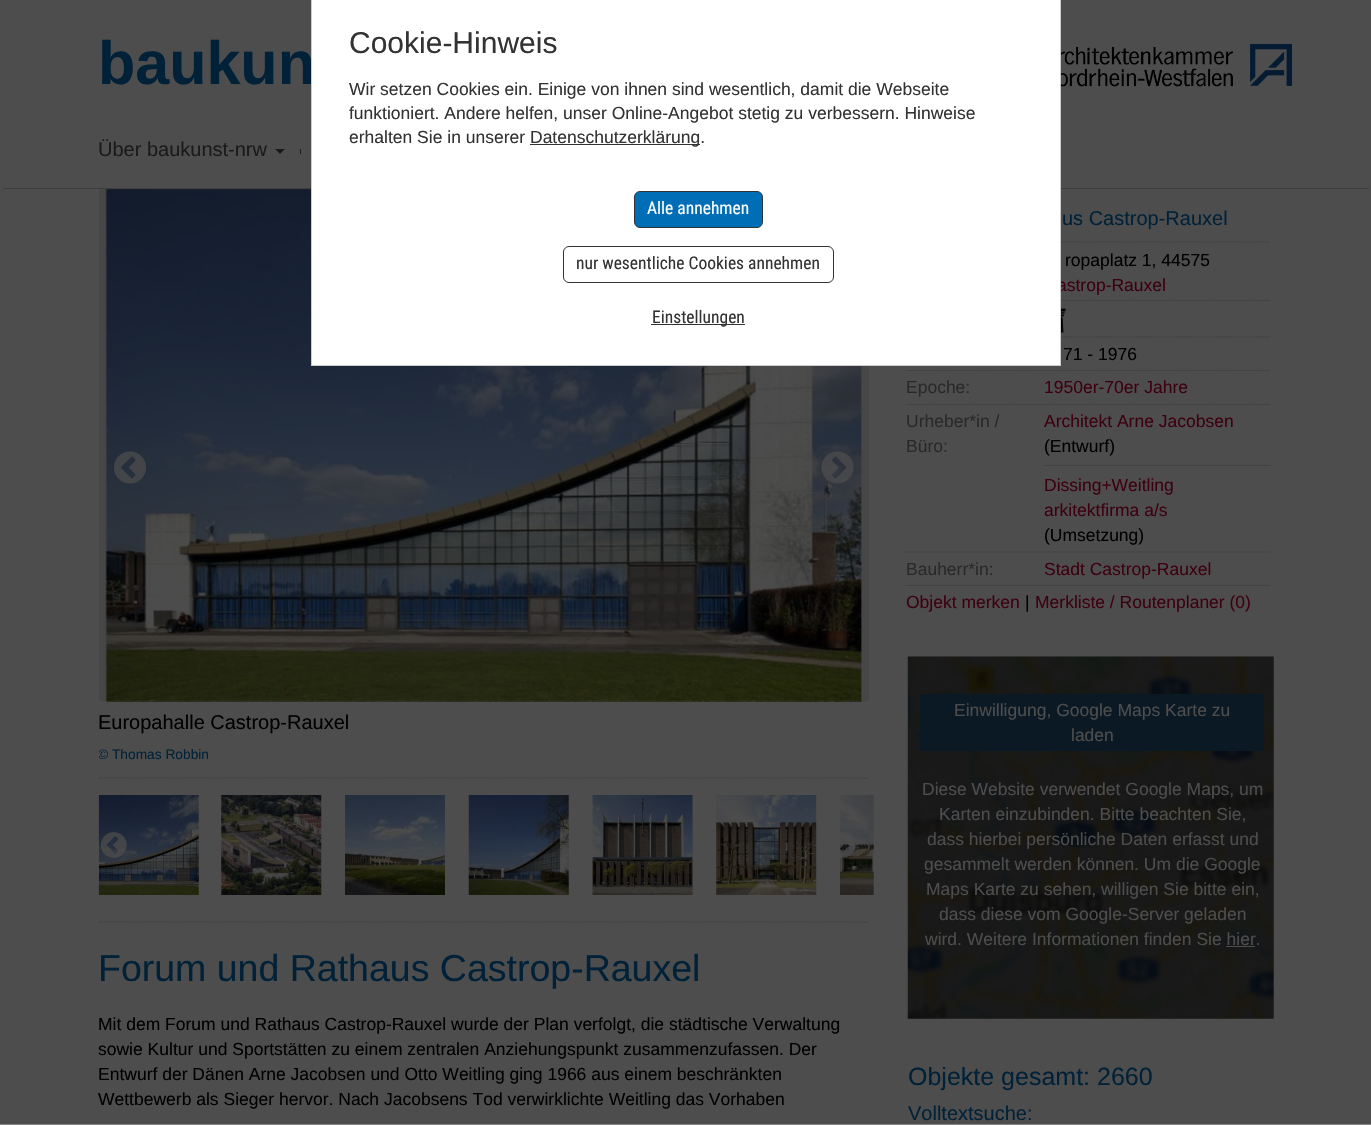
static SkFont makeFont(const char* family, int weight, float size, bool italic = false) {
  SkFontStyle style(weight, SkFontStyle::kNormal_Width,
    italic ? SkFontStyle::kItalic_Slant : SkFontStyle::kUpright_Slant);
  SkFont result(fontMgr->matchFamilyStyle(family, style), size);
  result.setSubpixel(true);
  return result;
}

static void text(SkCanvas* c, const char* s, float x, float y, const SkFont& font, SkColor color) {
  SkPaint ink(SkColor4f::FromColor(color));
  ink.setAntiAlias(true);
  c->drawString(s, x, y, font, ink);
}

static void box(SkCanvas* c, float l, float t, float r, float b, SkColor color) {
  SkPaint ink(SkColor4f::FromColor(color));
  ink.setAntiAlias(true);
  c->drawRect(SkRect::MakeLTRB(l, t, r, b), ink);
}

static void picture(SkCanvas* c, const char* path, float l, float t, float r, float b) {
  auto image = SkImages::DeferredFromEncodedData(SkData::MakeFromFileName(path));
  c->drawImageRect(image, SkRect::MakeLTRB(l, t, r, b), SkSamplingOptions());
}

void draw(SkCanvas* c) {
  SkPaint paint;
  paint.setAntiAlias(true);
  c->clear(0xff4d4d4d);
  SkFont face1 = makeFont("Liberation Sans", 700, 61);
  text(c, "baukun", 98, 84, face1, 0xff002137);
  picture(c, "img_01.png", 1061, 43, 1292, 87);
  box(c, 0, 1124, 1371, 1125, 0xff888888);
  box(c, 3, 188, 1369, 189, 0xff3d3d3d);
  paint.setStyle(SkPaint::kStroke_Style);
  paint.setStrokeWidth(1.2f);
  paint.setColor(0xff3a3a3a);
  paint.setPathEffect(SkDashPathEffect::Make({{1.25f, 1.25f}}, 0));
  c->drawPath(SkPathBuilder().moveTo(906, 242).lineTo(1271, 242).detach(), paint);
  paint.setPathEffect(nullptr);
  SkFont face2 = makeFont("Liberation Sans", 400, 17.5f);
  text(c, "astrop-Rauxel", 1057, 291, face2, 0xff3d0011);
  paint.setPathEffect(SkDashPathEffect::Make({{1.25f, 1.25f}}, 0));
  c->drawPath(SkPathBuilder().moveTo(906, 300.5f).lineTo(1271, 300.5f).detach(), paint);
  paint.setPathEffect(nullptr);
  paint.setPathEffect(SkDashPathEffect::Make({{1.25f, 1.25f}}, 0));
  c->drawPath(SkPathBuilder().moveTo(906, 337).lineTo(1271, 337).detach(), paint);
  paint.setPathEffect(nullptr);
  box(c, 99, 189, 869, 701, 0xff474747);
  picture(c, "img_05.png", 105, 189, 862, 702);
  box(c, 312, 0, 1060, 365, 0xffffffff);
  box(c, 1060, 0, 1061, 366, 0xffcccccc);
  box(c, 311, 365, 1061, 366, 0xffcccccc);
  box(c, 311, 0, 312, 366, 0xffcccccc);
  SkFont face3 = makeFont("Liberation Sans", 400, 30);
  text(c, "Cookie-Hinweis", 349, 53, face3, 0xff333333);
  text(c, "Wir setzen Cookies ein. Einige von ihnen sind wesentlich, damit die Webseite", 349, 95, face2, 0xff333333);
  text(c, "funktioniert. Andere helfen, unser Online-Angebot stetig zu verbessern. Hinweise", 349, 119, face2, 0xff333333);
  text(c, "erhalten Sie in unserer", 349, 143, face2, 0xff333333);
  box(c, 530, 144, 700, 145, 0xff333333);
  text(c, "Datenschutzerklärung.", 530, 143, face2, 0xff333333);
  paint.setStyle(SkPaint::kFill_Style);
  paint.setColor(0xff006eb6);
  c->drawRoundRect(SkRect::MakeLTRB(634.5f, 191.5f, 762.5f, 227.5f), 5.5f, 5.5f, paint);
  paint.setStyle(SkPaint::kStroke_Style);
  paint.setStrokeWidth(1);
  paint.setColor(0xff333333);
  c->drawRoundRect(SkRect::MakeLTRB(634.5f, 191.5f, 762.5f, 227.5f), 5.5f, 5.5f, paint);
  SkFont face4 = makeFont("Roboto Condensed", 400, 17.5f);
  text(c, "Alle annehmen", 647, 214, face4, 0xffffffff);
  c->drawRoundRect(SkRect::MakeLTRB(563.5f, 246.5f, 833.5f, 282.5f), 5.5f, 5.5f, paint);
  text(c, "nur wesentliche Cookies annehmen", 576, 269, face4, 0xff333333);
  box(c, 651, 324, 745, 325, 0xff333333);
  text(c, "Einstellungen", 652, 323, face4, 0xff333333);
  box(c, 300, 149, 301, 154, 0xff1a1a1a);
  SkFont face5 = makeFont("Liberation Sans", 400, 20);
  text(c, "Über baukunst-nrw", 98, 156, face5, 0xff1a1a1a);
  paint.setStyle(SkPaint::kFill_Style);
  paint.setColor(0xff1a1a1a);
  c->drawPath(SkPathBuilder().moveTo(275, 149).lineTo(285, 149).lineTo(280, 154).close().detach(), paint);
  text(c, "us Castrop-Rauxel", 1062, 225, face5, 0xff002137);
  text(c, "ropaplatz 1, 44575", 1065, 266, face2, 0xff000000);
  picture(c, "img_02.png", 1061, 308, 1067, 333);
  text(c, "71 - 1976", 1063, 360, face2, 0xff000000);
  paint.setStyle(SkPaint::kStroke_Style);
  paint.setStrokeWidth(1.2f);
  paint.setColor(0xff3a3a3a);
  paint.setPathEffect(SkDashPathEffect::Make({{1.25f, 1.25f}}, 0));
  c->drawPath(SkPathBuilder().moveTo(906, 370.5f).lineTo(1271, 370.5f).detach(), paint);
  paint.setPathEffect(nullptr);
  text(c, "Epoche:", 906, 393, face2, 0xff292929);
  text(c, "1950er-70er Jahre", 1044, 393, face2, 0xff3d0011);
  paint.setPathEffect(SkDashPathEffect::Make({{1.25f, 1.25f}}, 0));
  c->drawPath(SkPathBuilder().moveTo(906, 404.5f).lineTo(1271, 404.5f).detach(), paint);
  paint.setPathEffect(nullptr);
  text(c, "Urheber*in /", 906, 427, face2, 0xff292929);
  text(c, "Büro:", 906, 452, face2, 0xff292929);
  text(c, "Architekt Arne Jacobsen", 1044, 427, face2, 0xff3d0011);
  text(c, "(Entwurf)", 1044, 452, face2, 0xff000000);
  paint.setPathEffect(SkDashPathEffect::Make({{1.25f, 1.25f}}, 0));
  c->drawPath(SkPathBuilder().moveTo(1044, 465.5f).lineTo(1271, 465.5f).detach(), paint);
  paint.setPathEffect(nullptr);
  text(c, "Dissing+Weitling", 1044, 491, face2, 0xff3d0011);
  text(c, "arkitektfirma a/s", 1044, 516, face2, 0xff3d0011);
  text(c, "(Umsetzung)", 1044, 541, face2, 0xff000000);
  paint.setPathEffect(SkDashPathEffect::Make({{1.25f, 1.25f}}, 0));
  c->drawPath(SkPathBuilder().moveTo(906, 552).lineTo(1271, 552).detach(), paint);
  paint.setPathEffect(nullptr);
  text(c, "Bauherr*in:", 906, 575, face2, 0xff292929);
  text(c, "Stadt Castrop-Rauxel", 1044, 575, face2, 0xff3d0011);
  paint.setPathEffect(SkDashPathEffect::Make({{1.25f, 1.25f}}, 0));
  c->drawPath(SkPathBuilder().moveTo(906, 585.5f).lineTo(1271, 585.5f).detach(), paint);
  paint.setPathEffect(nullptr);
  text(c, "Objekt merken", 906, 608, face2, 0xff3d0011);
  text(c, "|", 1025, 608, face2, 0xff000000);
  text(c, "Merkliste / Routenplaner (0)", 1035, 608, face2, 0xff3d0011);
  picture(c, "img_03.png", 114, 451, 146, 484);
  picture(c, "img_04.png", 821, 451, 854, 484);
  text(c, "Europahalle Castrop-Rauxel", 98, 729, face5, 0xff000000);
  c->save();
  c->clipRect(SkRect::MakeLTRB(99, 189, 869, 784));
  SkFont face6 = makeFont("Liberation Sans", 400, 13.75f);
  text(c, "© Thomas Robbin", 98, 759, face6, 0xff002137);
  c->restore();
  paint.setPathEffect(SkDashPathEffect::Make({{1.25f, 1.25f}}, 0));
  c->drawPath(SkPathBuilder().moveTo(99, 778).lineTo(869, 778).detach(), paint);
  paint.setPathEffect(nullptr);
  picture(c, "img_06.png", 98, 795, 199, 895);
  picture(c, "img_07.png", 221, 795, 322, 895);
  picture(c, "img_08.png", 345, 795, 445, 895);
  picture(c, "img_09.png", 468, 795, 569, 895);
  box(c, 692, 795, 693, 895, 0xff474747);
  picture(c, "img_10.png", 592, 795, 693, 895);
  picture(c, "img_11.png", 716, 795, 817, 895);
  picture(c, "img_12.png", 840, 795, 874, 895);
  picture(c, "img_13.png", 100, 832, 127, 858);
  picture(c, "img_14.png", 840, 832, 856, 858);
  picture(c, "img_15.png", 907, 656, 1274, 1019);
  box(c, 920, 694, 1264, 751, 0xff0b1925);
  text(c, "Einwilligung, Google Maps Karte zu", 954, 716, face2, 0xff4d4d4d);
  text(c, "laden", 1071, 741, face2, 0xff4d4d4d);
  text(c, "Diese Website verwendet Google Maps, um", 922, 795, face2, 0xff4d4d4d);
  text(c, "Karten einzubinden. Bitte beachten Sie,", 939, 820, face2, 0xff4d4d4d);
  text(c, "dass hierbei persönliche Daten erfasst und", 927, 845, face2, 0xff4d4d4d);
  text(c, "gesammelt werden können. Um die Google", 924, 870, face2, 0xff4d4d4d);
  text(c, "Maps Karte zu sehen, willigen Sie bitte ein,", 926, 895, face2, 0xff4d4d4d);
  text(c, "dass diese vom Google-Server geladen", 939, 920, face2, 0xff4d4d4d);
  text(c, "wird. Weitere Informationen finden Sie hier.", 925, 945, face2, 0xff4d4d4d);
  box(c, 1226, 946, 1255, 947, 0xff4d4d4d);
  SkFont face7 = makeFont("Liberation Sans", 400, 25);
  text(c, "Objekte gesamt: 2660", 908, 1085, face7, 0xff002137);
  text(c, "Volltextsuche:", 908, 1120, face5, 0xff002137);
  paint.setPathEffect(SkDashPathEffect::Make({{1.25f, 1.25f}}, 0));
  c->drawPath(SkPathBuilder().moveTo(99, 922).lineTo(869, 922).detach(), paint);
  paint.setPathEffect(nullptr);
  SkFont face8 = makeFont("Liberation Sans", 400, 37.5f);
  text(c, "Forum und Rathaus Castrop-Rauxel", 98, 981, face8, 0xff002137);
  text(c, "Mit dem Forum und Rathaus Castrop-Rauxel wurde der Plan verfolgt, die städtische Verwaltung", 98, 1030, face2, 0xff000000);
  text(c, "sowie Kultur und Sportstätten zu einem zentralen Anziehungspunkt zusammenzufassen. Der", 98, 1055, face2, 0xff000000);
  text(c, "Entwurf der Dänen Arne Jacobsen und Otto Weitling ging 1966 aus einem beschränkten", 98, 1080, face2, 0xff000000);
  text(c, "Wettbewerb als Sieger hervor. Nach Jacobsens Tod verwirklichte Weitling das Vorhaben", 98, 1105, face2, 0xff000000);
}
